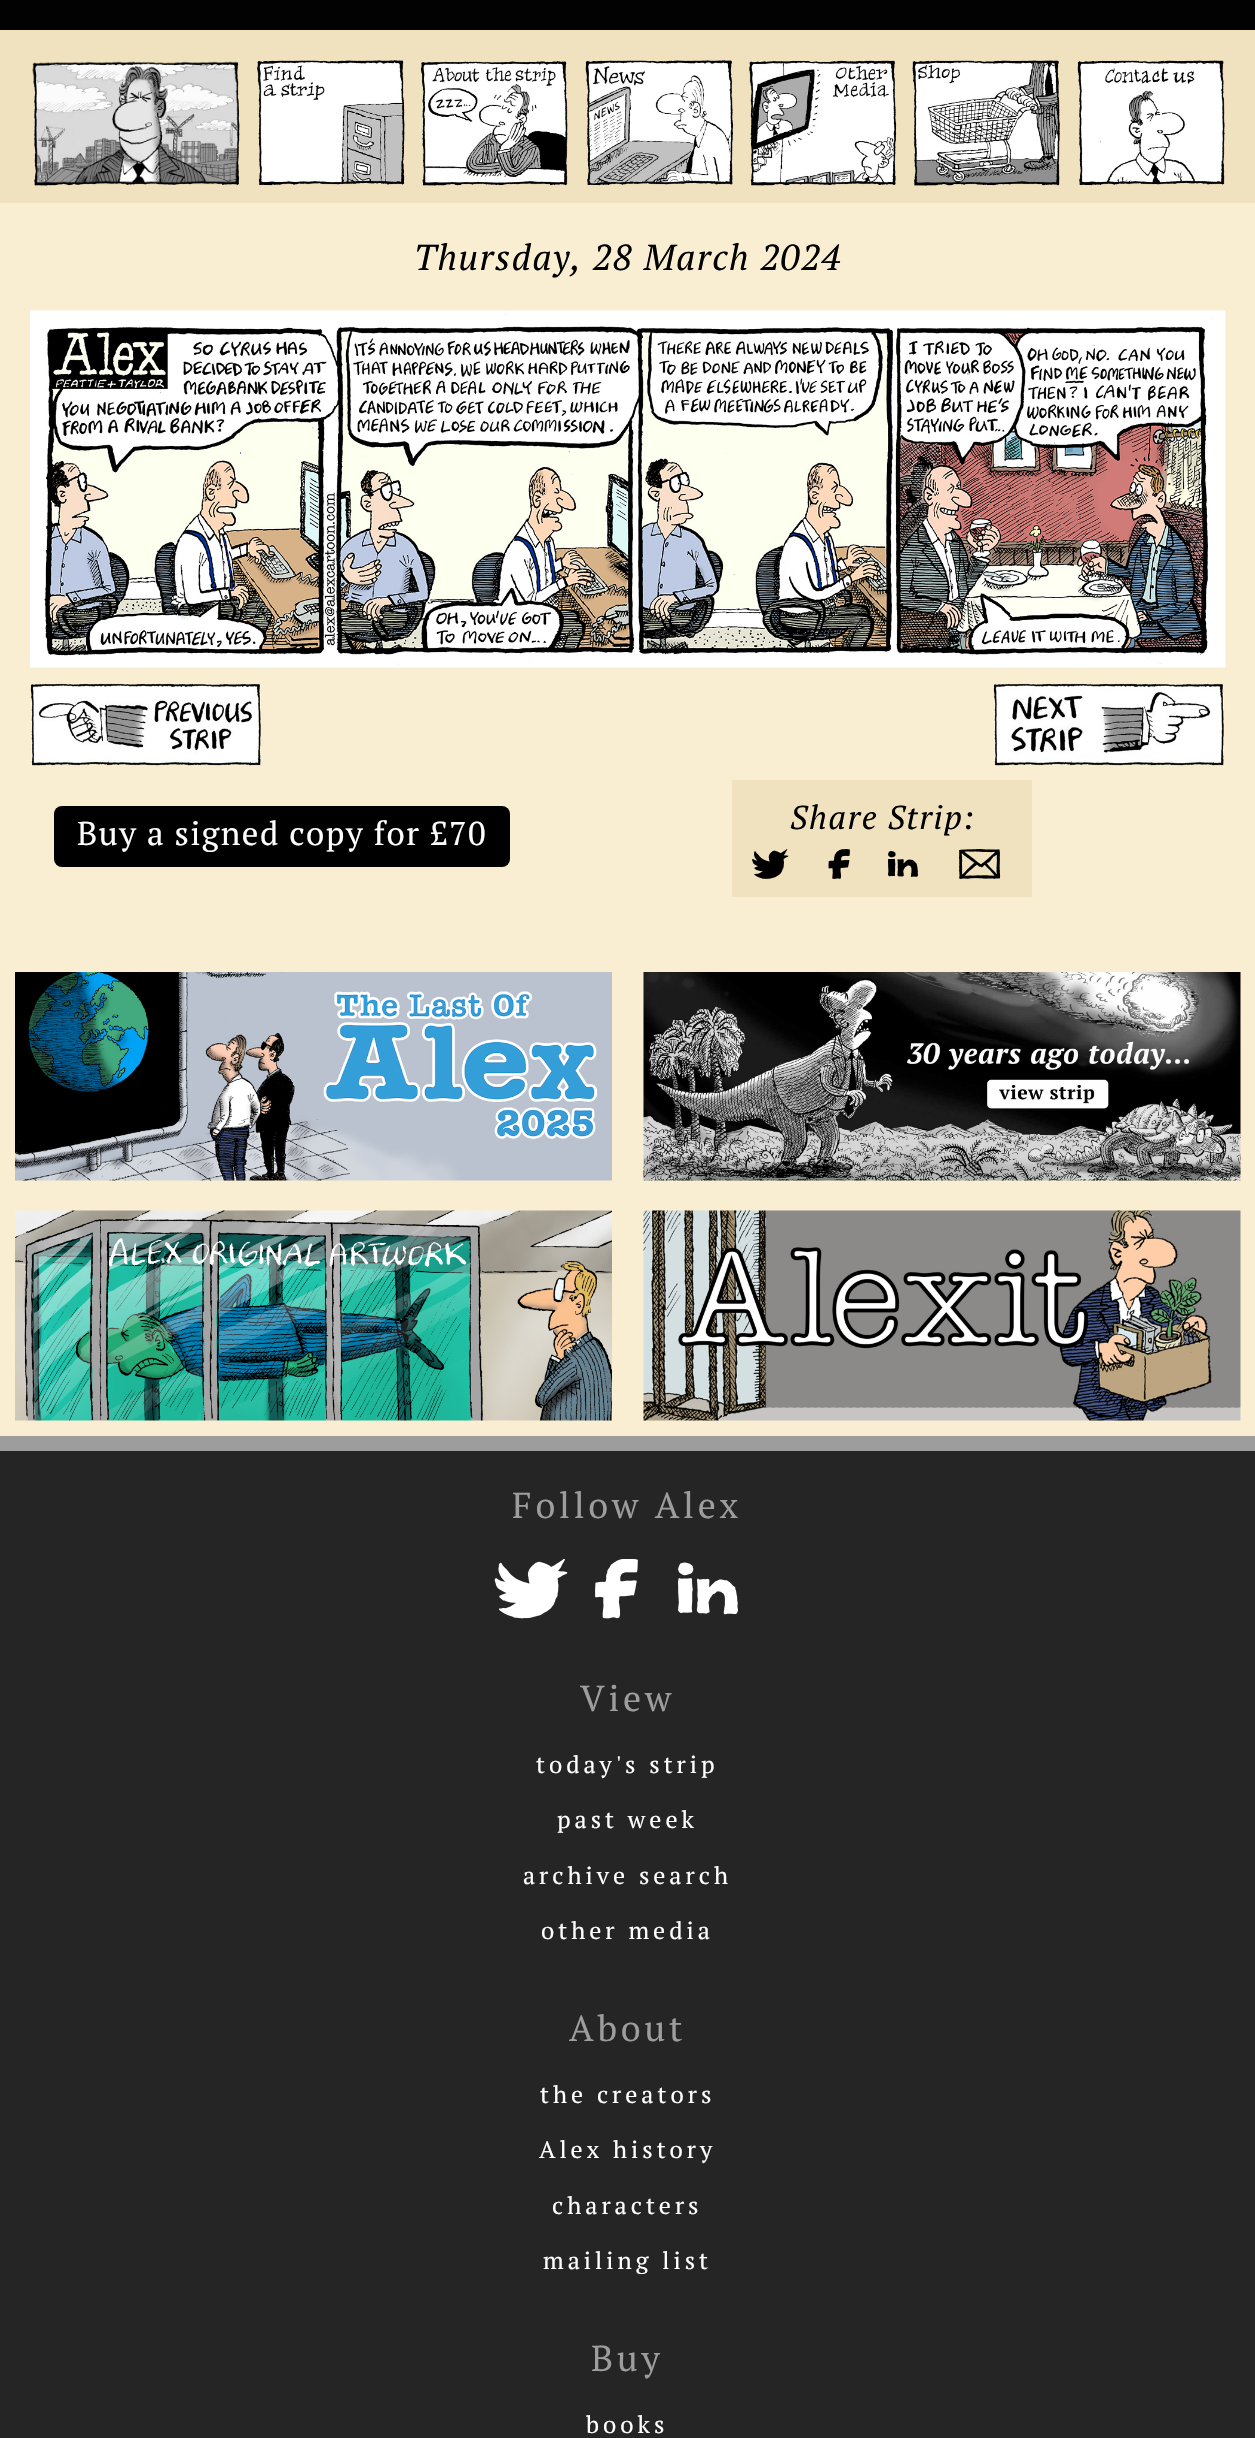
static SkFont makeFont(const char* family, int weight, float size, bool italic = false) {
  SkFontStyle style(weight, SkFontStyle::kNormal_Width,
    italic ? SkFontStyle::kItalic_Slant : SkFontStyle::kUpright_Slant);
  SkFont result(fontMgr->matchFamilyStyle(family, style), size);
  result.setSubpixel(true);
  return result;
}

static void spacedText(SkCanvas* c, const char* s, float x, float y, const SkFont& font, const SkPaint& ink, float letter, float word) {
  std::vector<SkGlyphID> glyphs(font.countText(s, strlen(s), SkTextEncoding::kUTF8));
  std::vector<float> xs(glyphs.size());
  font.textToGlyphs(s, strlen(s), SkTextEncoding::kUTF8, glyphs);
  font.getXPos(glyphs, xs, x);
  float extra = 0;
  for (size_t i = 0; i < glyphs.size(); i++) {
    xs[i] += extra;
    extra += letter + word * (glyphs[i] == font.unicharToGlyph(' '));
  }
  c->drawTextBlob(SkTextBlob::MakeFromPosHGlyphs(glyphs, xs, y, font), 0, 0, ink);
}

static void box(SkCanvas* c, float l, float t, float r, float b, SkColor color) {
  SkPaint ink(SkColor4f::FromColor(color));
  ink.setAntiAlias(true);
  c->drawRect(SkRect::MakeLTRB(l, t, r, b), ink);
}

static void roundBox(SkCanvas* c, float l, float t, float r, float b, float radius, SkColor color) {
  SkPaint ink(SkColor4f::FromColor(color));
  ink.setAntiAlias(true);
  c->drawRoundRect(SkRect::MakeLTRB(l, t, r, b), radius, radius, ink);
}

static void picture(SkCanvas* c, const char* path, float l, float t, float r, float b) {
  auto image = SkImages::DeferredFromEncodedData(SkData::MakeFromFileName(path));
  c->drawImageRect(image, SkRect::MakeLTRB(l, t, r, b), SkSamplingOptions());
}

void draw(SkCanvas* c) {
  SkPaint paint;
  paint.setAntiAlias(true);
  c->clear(0xff020202);
  box(c, 0, 30, 1255, 203, 0xfff0e2be);
  picture(c, "img_01.png", 32, 60, 240, 186);
  picture(c, "img_02.png", 256, 60, 405, 186);
  picture(c, "img_03.png", 420, 61, 568, 186);
  picture(c, "img_04.png", 585, 60, 733, 186);
  picture(c, "img_05.png", 749, 60, 897, 186);
  picture(c, "img_06.png", 912, 60, 1060, 186);
  picture(c, "img_07.png", 1077, 60, 1225, 186);
  box(c, 0, 203, 1255, 1436, 0xfff9eed1);
  SkFont face1 = makeFont("PT Serif", 400, 36, true);
  paint.setColor(0xff000000);
  spacedText(c, "Thursday, 28 March 2024", 414, 270, face1, paint, 1.5f, 0);
  picture(c, "img_08.png", 30, 310, 1226, 668);
  picture(c, "img_09.png", 30, 682, 263, 767);
  picture(c, "img_10.png", 993, 682, 1226, 767);
  roundBox(c, 54, 806, 510, 867, 8, 0xff000000);
  SkFont face2 = makeFont("PT Serif", 400, 33);
  paint.setColor(0xffffffff);
  spacedText(c, "Buy a signed copy for £70", 77, 845, face2, paint, 1.5f, 0);
  box(c, 732, 780, 1032, 897, 0xfff0e2be);
  SkFont face3 = makeFont("PT Serif", 400, 33, true);
  paint.setColor(0xff000000);
  spacedText(c, "Share Strip:", 790, 829, face3, paint, 1.5f, 0);
  picture(c, "img_11.png", 752, 849, 789, 879);
  picture(c, "img_12.png", 828, 849, 850, 879);
  picture(c, "img_13.png", 888, 851, 918, 877);
  picture(c, "img_14.png", 959, 849, 1001, 879);
  picture(c, "img_15.png", 15, 972, 612, 1181);
  picture(c, "img_16.png", 643, 972, 1241, 1181);
  picture(c, "img_17.png", 15, 1210, 612, 1421);
  picture(c, "img_18.png", 643, 1210, 1241, 1421);
  box(c, 0, 1451, 1255, 2438, 0xff252525);
  box(c, 0, 1436, 1255, 1451, 0xff9d9d9d);
  SkFont face4 = makeFont("PT Serif", 400, 36);
  paint.setColor(0xff9d9d9d);
  spacedText(c, "Follow Alex", 512, 1518, face4, paint, 3.8f, 0);
  picture(c, "img_19.png", 494, 1559, 568, 1619);
  picture(c, "img_20.png", 595, 1559, 638, 1619);
  picture(c, "img_21.png", 678, 1562, 738, 1615);
  spacedText(c, "View", 580, 1711, face4, paint, 3.8f, 0);
  SkFont face5 = makeFont("PT Serif", 400, 24);
  paint.setColor(0xffffffff);
  spacedText(c, "today's strip", 536, 1773, face5, paint, 4, 0);
  spacedText(c, "past week", 557, 1828, face5, paint, 4, 0);
  spacedText(c, "archive search", 523, 1884, face5, paint, 4, 0);
  spacedText(c, "other media", 541, 1939, face5, paint, 4, 0);
  paint.setColor(0xff9d9d9d);
  spacedText(c, "About", 569, 2041, face4, paint, 3.8f, 0);
  paint.setColor(0xffffffff);
  spacedText(c, "the creators", 540, 2103, face5, paint, 4, 0);
  spacedText(c, "Alex history", 539, 2158, face5, paint, 4, 0);
  spacedText(c, "characters", 552, 2214, face5, paint, 4, 0);
  spacedText(c, "mailing list", 543, 2269, face5, paint, 4, 0);
  paint.setColor(0xff9d9d9d);
  spacedText(c, "Buy", 591, 2371, face4, paint, 3.8f, 0);
  paint.setColor(0xffffffff);
  spacedText(c, "books", 586, 2433, face5, paint, 4, 0);
}
